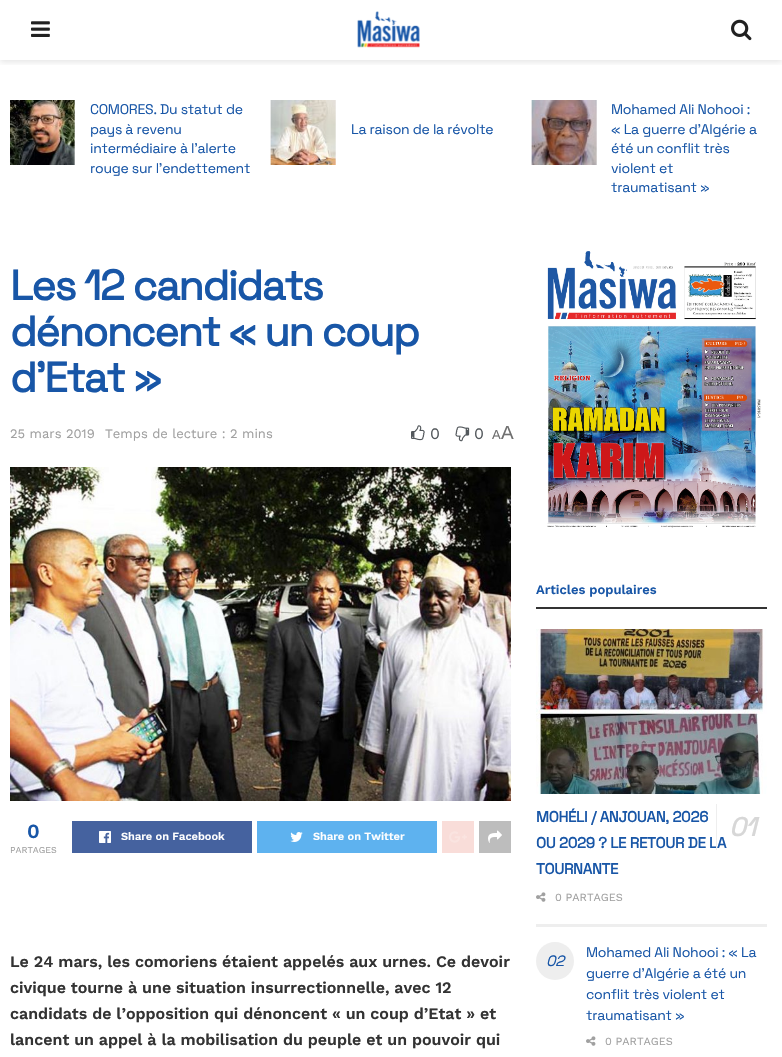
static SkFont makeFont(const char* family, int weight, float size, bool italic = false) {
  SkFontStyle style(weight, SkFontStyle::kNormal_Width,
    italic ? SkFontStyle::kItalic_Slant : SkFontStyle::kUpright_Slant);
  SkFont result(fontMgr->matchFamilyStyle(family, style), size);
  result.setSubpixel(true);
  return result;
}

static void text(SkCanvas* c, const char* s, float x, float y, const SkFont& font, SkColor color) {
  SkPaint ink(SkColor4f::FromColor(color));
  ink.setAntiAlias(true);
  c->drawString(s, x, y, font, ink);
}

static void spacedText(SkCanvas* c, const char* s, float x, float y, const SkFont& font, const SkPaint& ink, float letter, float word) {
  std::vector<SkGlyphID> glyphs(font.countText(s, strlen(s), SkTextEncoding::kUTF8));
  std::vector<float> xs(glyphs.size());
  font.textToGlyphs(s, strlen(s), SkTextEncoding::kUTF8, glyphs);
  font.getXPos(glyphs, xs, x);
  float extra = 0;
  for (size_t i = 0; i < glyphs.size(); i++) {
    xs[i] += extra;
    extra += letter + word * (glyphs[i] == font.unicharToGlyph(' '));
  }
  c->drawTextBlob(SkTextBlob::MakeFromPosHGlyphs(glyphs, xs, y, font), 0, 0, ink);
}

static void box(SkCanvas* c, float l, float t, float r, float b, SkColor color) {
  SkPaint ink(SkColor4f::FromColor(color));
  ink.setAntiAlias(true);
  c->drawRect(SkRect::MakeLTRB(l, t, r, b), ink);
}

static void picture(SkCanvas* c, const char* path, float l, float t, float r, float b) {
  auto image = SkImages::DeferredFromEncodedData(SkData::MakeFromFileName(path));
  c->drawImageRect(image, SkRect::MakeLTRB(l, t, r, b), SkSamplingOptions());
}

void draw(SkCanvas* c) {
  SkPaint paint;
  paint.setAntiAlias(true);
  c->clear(0xffffffff);
  c->save();
  c->clipRect(SkRect::MakeLTRB(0, 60, 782, 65));
  paint.setColor(0x1a000000);
  paint.setMaskFilter(SkMaskFilter::MakeBlur(kNormal_SkBlurStyle, 3));
  c->drawRect(SkRect::MakeLTRB(0, 2, 782, 62), paint);
  paint.setMaskFilter(nullptr);
  c->restore();
  picture(c, "img_01.png", 31, 21, 50, 37);
  picture(c, "img_02.png", 357, 11, 420, 48);
  picture(c, "img_03.png", 731, 19, 752, 41);
  box(c, 74, 100, 75, 165, 0xfff7f7f7);
  picture(c, "img_04.png", 10, 100, 75, 165);
  SkFont face1 = makeFont("Space Grotesk", 300, 14);
  paint.setColor(0xff1856a7);
  spacedText(c, "COMORES. Du statut de", 90, 114, face1, paint, -0.25f, 0);
  spacedText(c, "pays à revenu", 90, 134, face1, paint, -0.25f, 0);
  spacedText(c, "intermédiaire à l’alerte", 90, 153, face1, paint, -0.25f, 0);
  spacedText(c, "rouge sur l’endettement", 90, 173, face1, paint, -0.25f, 0);
  box(c, 335, 100, 336, 165, 0xfff7f7f7);
  picture(c, "img_05.png", 270, 100, 271, 165);
  picture(c, "img_06.png", 270, 100, 336, 165);
  spacedText(c, "La raison de la révolte", 351, 134, face1, paint, -0.25f, 0);
  box(c, 596, 100, 597, 165, 0xfff7f7f7);
  picture(c, "img_05.png", 531, 100, 532, 165);
  picture(c, "img_07.png", 531, 100, 597, 165);
  spacedText(c, "Mohamed Ali Nohooi :", 611, 114, face1, paint, -0.25f, 0);
  spacedText(c, "« La guerre d’Algérie a", 611, 134, face1, paint, -0.25f, 0);
  spacedText(c, "été un conflit très", 611, 153, face1, paint, -0.25f, 0);
  spacedText(c, "violent et", 611, 173, face1, paint, -0.25f, 0);
  spacedText(c, "traumatisant »", 611, 192, face1, paint, -0.25f, 0);
  SkFont face2 = makeFont("Space Grotesk", 700, 42);
  spacedText(c, "Les 12 candidats", 10, 300, face2, paint, -1.7f, 0);
  spacedText(c, "dénoncent « un coup", 10, 346, face2, paint, -1.7f, 0);
  spacedText(c, "d’Etat »", 10, 392, face2, paint, -1.7f, 0);
  SkFont face3 = makeFont("Work Sans", 400, 13);
  text(c, "25 mars 2019", 10, 438, face3, 0xffa0a0a0);
  text(c, "Temps de lecture : 2 mins", 105, 438, face3, 0xffa0a0a0);
  picture(c, "img_08.png", 411, 425, 425, 441);
  SkFont face4 = makeFont("Work Sans", 400, 16);
  text(c, "0", 430, 439, face4, 0xff53585c);
  picture(c, "img_09.png", 455, 426, 470, 442);
  text(c, "0", 474, 439, face4, 0xff53585c);
  SkFont face5 = makeFont("Liberation Sans", 400, 13);
  text(c, "A", 492, 439, face5, 0xff707070);
  SkFont face6 = makeFont("Liberation Sans", 400, 19);
  text(c, "A", 501, 439, face6, 0xff707070);
  picture(c, "img_10.png", 10, 467, 511, 801);
  SkFont face7 = makeFont("Work Sans", 600, 20);
  text(c, "0", 27, 838, face7, 0xff1856a7);
  SkFont face8 = makeFont("Work Sans", 400, 9);
  text(c, "PARTAGES", 10, 853, face8, 0xffa0a0a0);
  box(c, 72, 821, 252, 853, 0xff45629f);
  picture(c, "img_11.png", 99, 831, 111, 843);
  SkFont face9 = makeFont("Work Sans", 600, 11);
  text(c, "Share on Facebook", 121, 840, face9, 0xffffffff);
  box(c, 257, 821, 437, 853, 0xff5eb2ef);
  picture(c, "img_12.png", 290, 832, 303, 842);
  text(c, "Share on Twitter", 313, 840, face9, 0xffffffff);
  box(c, 442, 821, 474, 853, 0xfff9ddd9);
  picture(c, "img_13.png", 449, 831, 467, 843);
  box(c, 479, 821, 511, 853, 0xffbdbdbd);
  picture(c, "img_14.png", 488, 830, 502, 843);
  SkFont face10 = makeFont("Work Sans", 600, 16);
  text(c, "Le 24 mars, les comoriens étaient appelés aux urnes. Ce devoir", 10, 967, face10, 0xff333333);
  text(c, "civique tourne à une situation insurrectionnelle, avec 12", 10, 993, face10, 0xff333333);
  text(c, "candidats de l’opposition qui dénoncent « un coup d’Etat » et", 10, 1019, face10, 0xff333333);
  text(c, "lancent un appel à la mobilisation du peuple et un pouvoir qui", 10, 1045, face10, 0xff333333);
  picture(c, "img_15.png", 547, 251, 761, 528);
  box(c, 536, 607, 767, 609, 0xff333333);
  SkFont face11 = makeFont("Work Sans", 600, 13);
  text(c, "Articles populaires", 536, 594, face11, 0xff1856a7);
  box(c, 536, 924, 767, 927, 0xffeeeeee);
  picture(c, "img_16.png", 536, 629, 767, 794);
  SkFont face12 = makeFont("Space Grotesk", 700, 15);
  spacedText(c, "MOHÉLI / ANJOUAN, 2026", 536, 822, face12, paint, -0.3f, 0);
  spacedText(c, "OU 2029 ? LE RETOUR DE LA", 536, 848, face12, paint, -0.3f, 0);
  box(c, 716, 804, 717, 850, 0xffeeeeee);
  SkFont face13 = makeFont("Space Grotesk", 700, 26, true);
  paint.setColor(0xffd7d7d7);
  spacedText(c, "01", 729, 836, face13, paint, -0.3f, 0);
  paint.setColor(0xff1856a7);
  spacedText(c, "TOURNANTE", 536, 874, face12, paint, -0.3f, 0);
  picture(c, "img_17.png", 536, 892, 546, 902);
  SkFont face14 = makeFont("Work Sans", 400, 11);
  text(c, "0 PARTAGES", 555, 901, face14, 0xffa0a0a0);
  spacedText(c, "Mohamed Ali Nohooi : « La", 586, 957, face1, paint, -0.25f, 0);
  paint.setColor(0xffeeeeee);
  c->drawCircle(555, 961, 19, paint);
  SkFont face15 = makeFont("Space Grotesk", 300, 15, true);
  paint.setColor(0xff1856a7);
  spacedText(c, "02", 546, 966, face15, paint, -0.25f, 0);
  spacedText(c, "guerre d’Algérie a été un", 586, 978, face1, paint, -0.25f, 0);
  spacedText(c, "conflit très violent et", 586, 999, face1, paint, -0.25f, 0);
  spacedText(c, "traumatisant »", 586, 1020, face1, paint, -0.25f, 0);
  picture(c, "img_17.png", 586, 1036, 596, 1046);
  text(c, "0 PARTAGES", 605, 1045, face14, 0xffa0a0a0);
}
